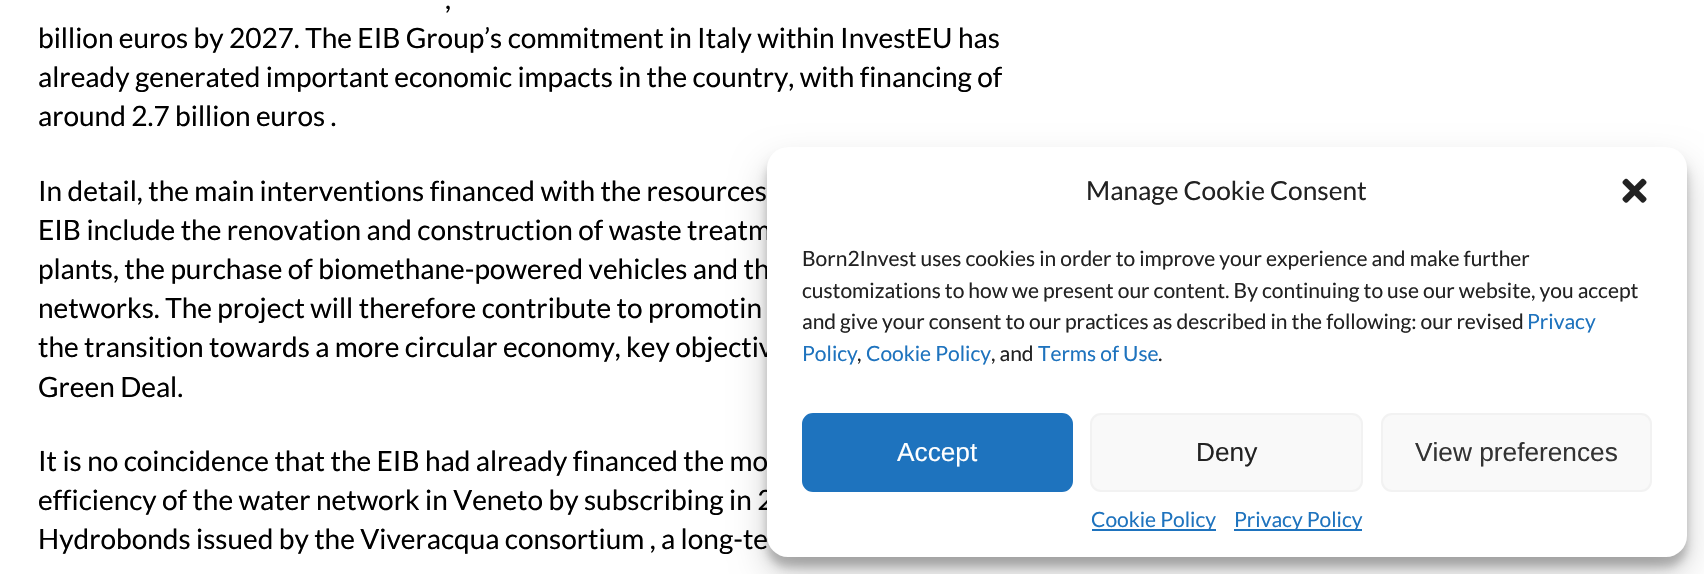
static SkFont makeFont(const char* family, int weight, float size, bool italic = false) {
  SkFontStyle style(weight, SkFontStyle::kNormal_Width,
    italic ? SkFontStyle::kItalic_Slant : SkFontStyle::kUpright_Slant);
  SkFont result(fontMgr->matchFamilyStyle(family, style), size);
  result.setSubpixel(true);
  return result;
}

static void text(SkCanvas* c, const char* s, float x, float y, const SkFont& font, SkColor color) {
  SkPaint ink(SkColor4f::FromColor(color));
  ink.setAntiAlias(true);
  c->drawString(s, x, y, font, ink);
}

static void box(SkCanvas* c, float l, float t, float r, float b, SkColor color) {
  SkPaint ink(SkColor4f::FromColor(color));
  ink.setAntiAlias(true);
  c->drawRect(SkRect::MakeLTRB(l, t, r, b), ink);
}

static void roundBox(SkCanvas* c, float l, float t, float r, float b, float radius, SkColor color) {
  SkPaint ink(SkColor4f::FromColor(color));
  ink.setAntiAlias(true);
  c->drawRoundRect(SkRect::MakeLTRB(l, t, r, b), radius, radius, ink);
}

static void picture(SkCanvas* c, const char* path, float l, float t, float r, float b) {
  auto image = SkImages::DeferredFromEncodedData(SkData::MakeFromFileName(path));
  c->drawImageRect(image, SkRect::MakeLTRB(l, t, r, b), SkSamplingOptions());
}

void draw(SkCanvas* c) {
  SkPaint paint;
  paint.setAntiAlias(true);
  c->clear(0xffffffff);
  SkFont face1 = makeFont("Lato", 400, 28);
  text(c, ",", 445, 9, face1, 0xff000000);
  text(c, "billion euros by 2027. The EIB Group’s commitment in Italy within InvestEU has", 38, 48, face1, 0xff000000);
  text(c, "already generated important economic impacts in the country, with financing of", 38, 87, face1, 0xff000000);
  text(c, "around 2.7 billion euros .", 38, 126, face1, 0xff000000);
  text(c, "In detail, the main interventions financed with the resources", 38, 201, face1, 0xff000000);
  text(c, "EIB include the renovation and construction of waste treatm", 38, 240, face1, 0xff000000);
  text(c, "plants, the purchase of biomethane-powered vehicles and th", 38, 279, face1, 0xff000000);
  text(c, "networks. The project will therefore contribute to promotin", 38, 318, face1, 0xff000000);
  text(c, "the transition towards a more circular economy, key objectiv", 38, 357, face1, 0xff000000);
  text(c, "Green Deal.", 38, 397, face1, 0xff000000);
  text(c, "It is no coincidence that the EIB had already financed the mo", 38, 471, face1, 0xff000000);
  text(c, "efficiency of the water network in Veneto by subscribing in 2", 38, 510, face1, 0xff000000);
  text(c, "Hydrobonds issued by the Viveracqua consortium , a long-te", 38, 549, face1, 0xff000000);
  paint.setColor(0x3b000000);
  paint.setMaskFilter(SkMaskFilter::MakeBlur(kNormal_SkBlurStyle, 5));
  c->drawRoundRect(SkRect::MakeLTRB(767, 158, 1687, 567), 21, 21, paint);
  paint.setMaskFilter(nullptr);
  paint.setColor(0x30000000);
  paint.setMaskFilter(SkMaskFilter::MakeBlur(kNormal_SkBlurStyle, 17.5f));
  c->drawRoundRect(SkRect::MakeLTRB(767, 165, 1687, 574), 21, 21, paint);
  paint.setMaskFilter(nullptr);
  roundBox(c, 767, 147, 1687, 557, 21, 0xffffffff);
  SkFont face2 = makeFont("Lato", 400, 26.25f);
  text(c, "Manage Cookie Consent", 1086, 200, face2, 0xff222222);
  picture(c, "img_01.png", 1622, 178, 1647, 203);
  SkFont face3 = makeFont("Lato", 400, 21);
  text(c, "Born2Invest uses cookies in order to improve your experience and make further", 802, 266, face3, 0xff222222);
  text(c, "customizations to how we present our content. By continuing to use our website, you accept", 802, 298, face3, 0xff222222);
  text(c, "and give your consent to our practices as described in the following: our revised", 802, 329, face3, 0xff222222);
  text(c, "Privacy", 1527, 329, face3, 0xff1e73be);
  text(c, "Policy", 802, 361, face3, 0xff1e73be);
  text(c, ",", 857, 361, face3, 0xff222222);
  text(c, "Cookie Policy", 866, 361, face3, 0xff1e73be);
  text(c, ", and", 991, 361, face3, 0xff222222);
  text(c, "Terms of Use", 1038, 361, face3, 0xff1e73be);
  text(c, ".", 1158, 361, face3, 0xff222222);
  paint.setColor(0xff1e73be);
  c->drawRoundRect(SkRect::MakeLTRB(803, 414, 1072, 491), 10, 10, paint);
  paint.setStyle(SkPaint::kStroke_Style);
  paint.setStrokeWidth(2);
  c->drawRoundRect(SkRect::MakeLTRB(803, 414, 1072, 491), 10, 10, paint);
  SkFont face4 = makeFont("Liberation Sans", 400, 26.25f);
  text(c, "Accept", 897, 461, face4, 0xffffffff);
  paint.setStyle(SkPaint::kFill_Style);
  paint.setColor(0xfff9f9f9);
  c->drawRoundRect(SkRect::MakeLTRB(1091, 414, 1362, 491), 10, 10, paint);
  paint.setStyle(SkPaint::kStroke_Style);
  paint.setColor(0xfff2f2f2);
  c->drawRoundRect(SkRect::MakeLTRB(1091, 414, 1362, 491), 10, 10, paint);
  text(c, "Deny", 1196, 461, face4, 0xff222222);
  paint.setStyle(SkPaint::kFill_Style);
  paint.setColor(0xfff9f9f9);
  c->drawRoundRect(SkRect::MakeLTRB(1382, 414, 1651, 491), 10, 10, paint);
  paint.setStyle(SkPaint::kStroke_Style);
  paint.setColor(0xfff2f2f2);
  c->drawRoundRect(SkRect::MakeLTRB(1382, 414, 1651, 491), 10, 10, paint);
  text(c, "View preferences", 1415, 461, face4, 0xff333333);
  box(c, 1092, 529, 1216, 531, 0xff1e73be);
  text(c, "Cookie Policy", 1091, 527, face3, 0xff1e73be);
  box(c, 1234, 529, 1362, 531, 0xff1e73be);
  text(c, "Privacy Policy", 1234, 527, face3, 0xff1e73be);
}
